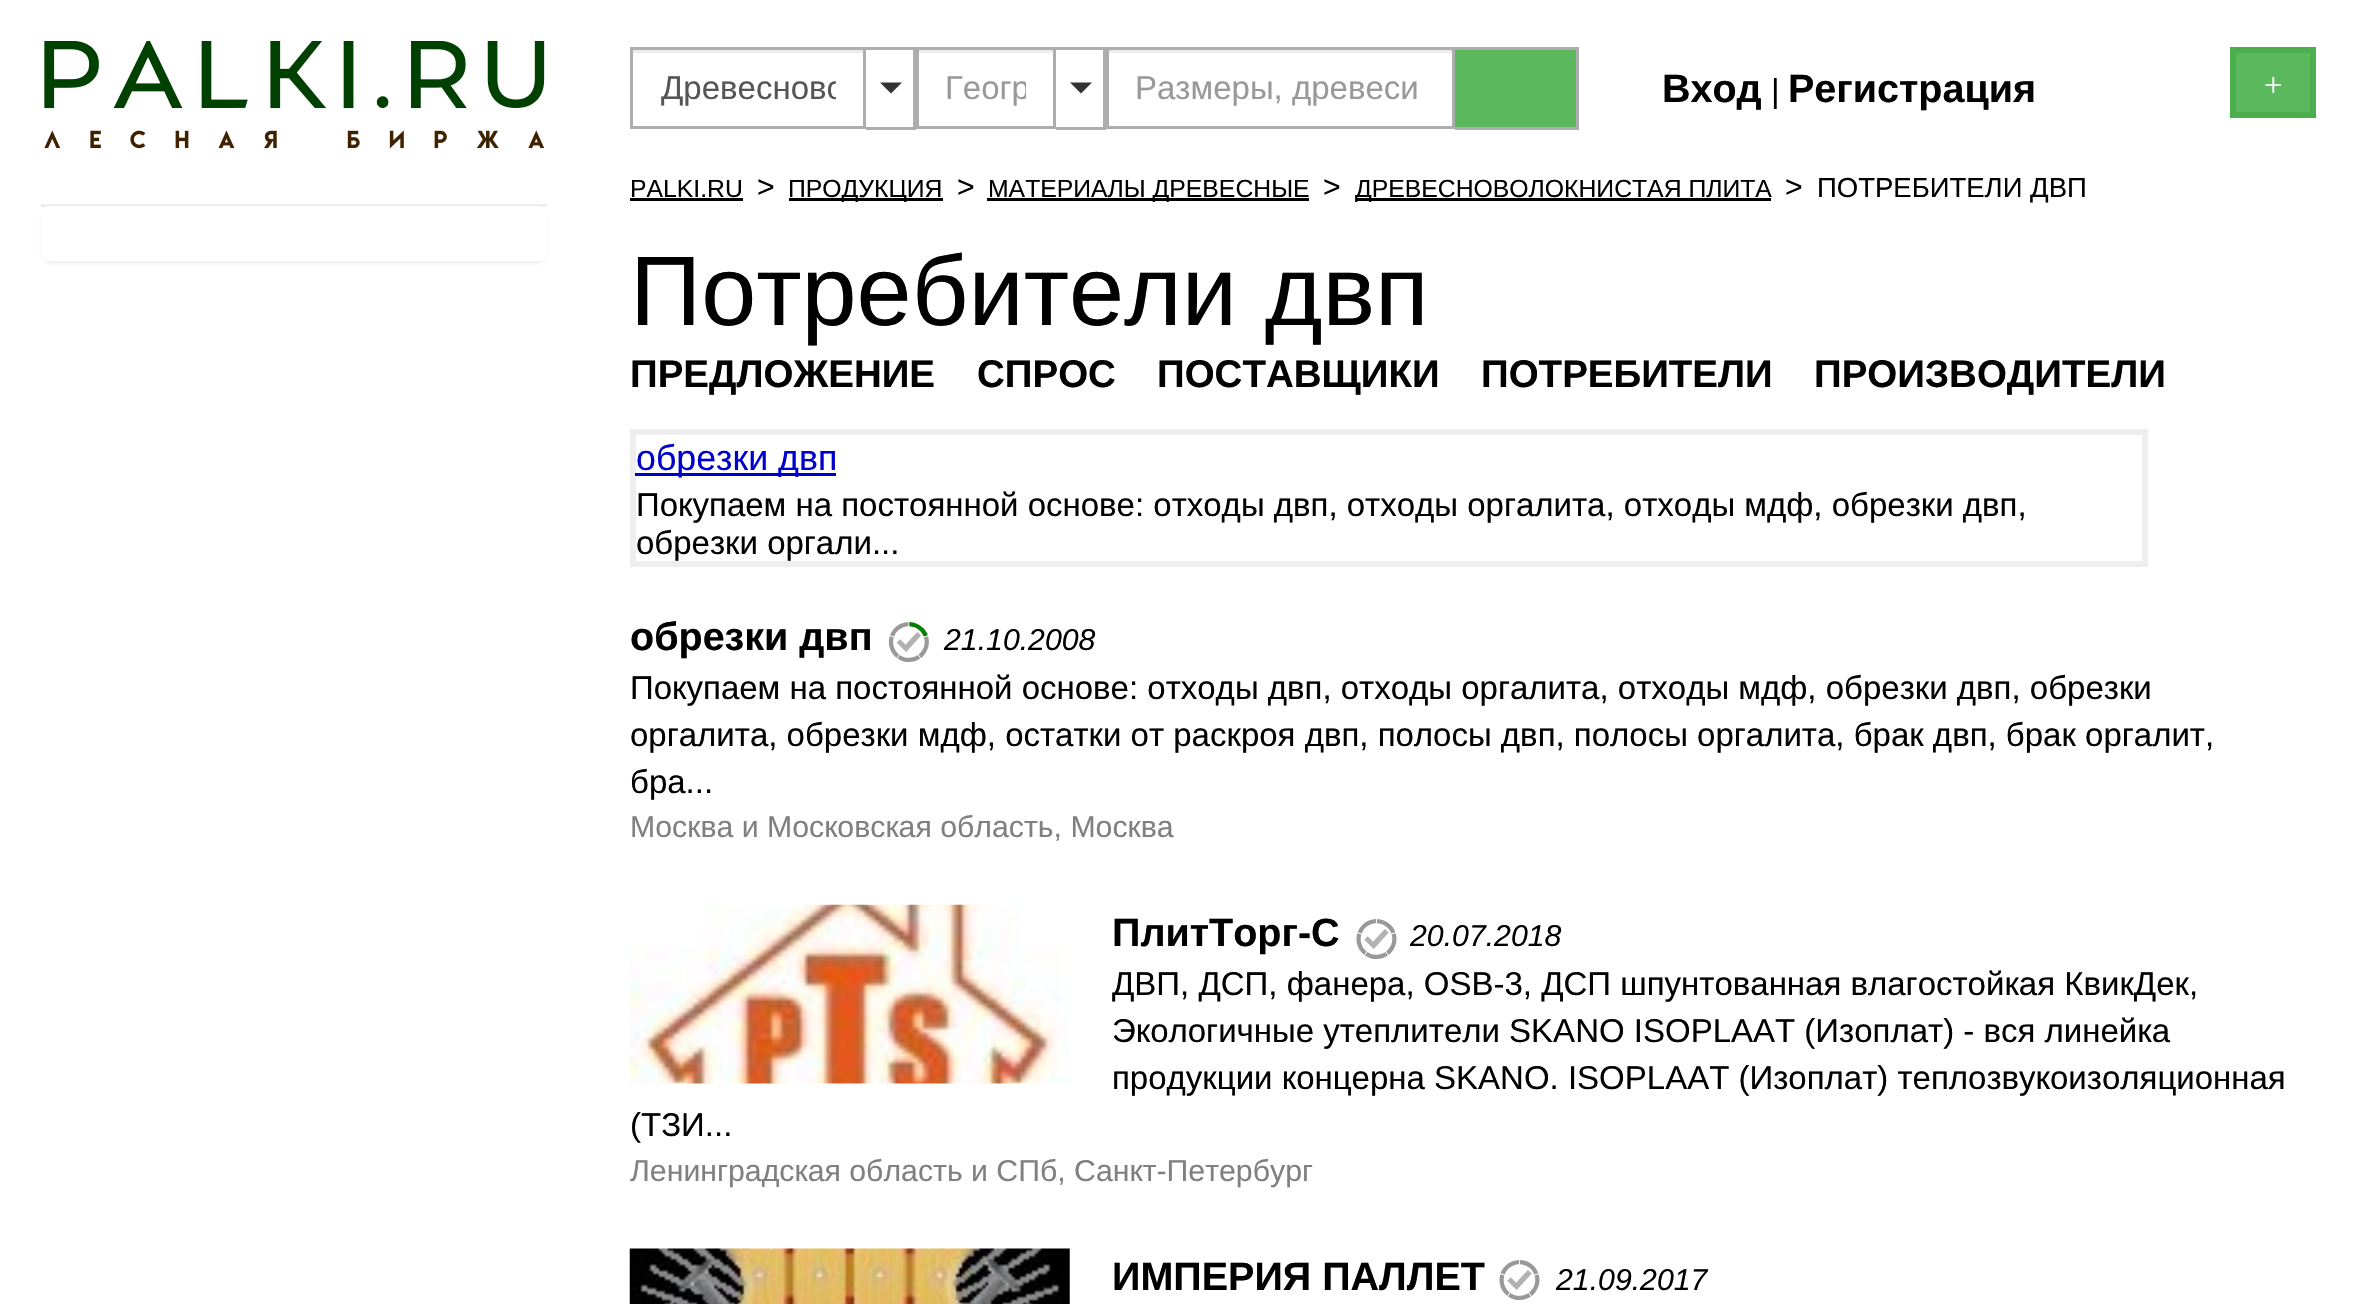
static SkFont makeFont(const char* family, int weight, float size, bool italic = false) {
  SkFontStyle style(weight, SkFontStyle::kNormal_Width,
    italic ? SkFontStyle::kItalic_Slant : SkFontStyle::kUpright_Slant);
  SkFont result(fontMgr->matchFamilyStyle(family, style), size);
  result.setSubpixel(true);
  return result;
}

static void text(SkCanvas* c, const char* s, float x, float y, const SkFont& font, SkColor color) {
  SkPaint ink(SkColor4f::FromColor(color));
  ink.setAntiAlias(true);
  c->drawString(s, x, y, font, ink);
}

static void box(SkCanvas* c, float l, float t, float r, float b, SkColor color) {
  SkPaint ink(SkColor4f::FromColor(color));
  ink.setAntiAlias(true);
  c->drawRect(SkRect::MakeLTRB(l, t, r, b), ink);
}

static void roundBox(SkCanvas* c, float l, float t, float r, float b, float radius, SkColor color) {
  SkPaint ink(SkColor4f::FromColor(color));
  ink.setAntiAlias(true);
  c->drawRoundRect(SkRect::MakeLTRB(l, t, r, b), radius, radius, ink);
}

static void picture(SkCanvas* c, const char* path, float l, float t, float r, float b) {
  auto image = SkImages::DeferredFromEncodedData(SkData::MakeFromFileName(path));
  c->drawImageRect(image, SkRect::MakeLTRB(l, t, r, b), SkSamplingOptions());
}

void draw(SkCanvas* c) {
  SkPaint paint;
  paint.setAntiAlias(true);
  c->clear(0xffffffff);
  picture(c, "img_01.png", 44, 41, 545, 149);
  box(c, 633, 50, 864, 53, 0xffececec);
  paint.setStyle(SkPaint::kStroke_Style);
  paint.setStrokeWidth(3);
  paint.setColor(0xffadadad);
  c->drawRect(SkRect::MakeLTRB(631.5f, 48.5f, 864.5f, 127.5f), paint);
  c->save();
  c->clipRect(SkRect::MakeLTRB(660, 69, 836, 107));
  SkFont face1 = makeFont("Liberation Sans", 400, 33);
  text(c, "Древесново", 661, 99, face1, 0xff555555);
  c->restore();
  box(c, 866, 47, 916, 50, 0xffadadad);
  box(c, 913, 47, 916, 129, 0xffadadad);
  box(c, 866, 127, 916, 130, 0xffadadad);
  paint.setStyle(SkPaint::kFill_Style);
  paint.setColor(0xff333333);
  c->drawPath(SkPathBuilder().moveTo(880, 82.5f).lineTo(902, 82.5f).lineTo(891, 93.5f).close().detach(), paint);
  box(c, 919, 50, 1053, 53, 0xffececec);
  paint.setStyle(SkPaint::kStroke_Style);
  paint.setColor(0xffadadad);
  c->drawRect(SkRect::MakeLTRB(917.5f, 48.5f, 1054.5f, 127.5f), paint);
  c->save();
  c->clipRect(SkRect::MakeLTRB(946, 69, 1026, 107));
  text(c, "Геогр", 945, 99, face1, 0xff999999);
  c->restore();
  box(c, 1056, 47, 1106, 50, 0xffadadad);
  box(c, 1103, 47, 1106, 129, 0xffadadad);
  box(c, 1056, 127, 1106, 130, 0xffadadad);
  paint.setStyle(SkPaint::kFill_Style);
  paint.setColor(0xff333333);
  c->drawPath(SkPathBuilder().moveTo(1070, 82.5f).lineTo(1092, 82.5f).lineTo(1081, 93.5f).close().detach(), paint);
  box(c, 1108, 50, 1452, 53, 0xffececec);
  paint.setStyle(SkPaint::kStroke_Style);
  paint.setColor(0xffadadad);
  c->drawRect(SkRect::MakeLTRB(1107.5f, 48.5f, 1453.5f, 127.5f), paint);
  text(c, "Размеры, древеси", 1135, 99, face1, 0xff999999);
  box(c, 1455, 50, 1576, 127, 0xff5cb85c);
  box(c, 1455, 47, 1579, 50, 0xffadadad);
  box(c, 1576, 47, 1579, 129, 0xffadadad);
  box(c, 1455, 127, 1579, 130, 0xffadadad);
  SkFont face2 = makeFont("Liberation Sans", 700, 39.5f);
  text(c, "Вход", 1662, 102, face2, 0xff000000);
  text(c, "|", 1771, 102, face1, 0xff000000);
  text(c, "Регистрация", 1788, 102, face2, 0xff000000);
  paint.setStyle(SkPaint::kFill_Style);
  paint.setColor(0xff5cb85c);
  c->drawRect(SkRect::MakeLTRB(2233, 50, 2313, 115), paint);
  paint.setStyle(SkPaint::kStroke_Style);
  paint.setStrokeWidth(6);
  paint.setColor(0xff4cae4c);
  c->drawRect(SkRect::MakeLTRB(2233, 50, 2313, 115), paint);
  SkFont face3 = makeFont("Liberation Serif", 400, 33);
  text(c, "+", 2264, 96, face3, 0xffffffff);
  paint.setStyle(SkPaint::kFill_Style);
  paint.setColor(0x0d000000);
  paint.setMaskFilter(SkMaskFilter::MakeBlur(kNormal_SkBlurStyle, 1.5f));
  c->drawRoundRect(SkRect::MakeLTRB(41, 209, 547, 264), 11, 11, paint);
  paint.setMaskFilter(nullptr);
  box(c, 41, 204, 547, 207, 0xffeeeeee);
  roundBox(c, 41, 206, 547, 261, 8, 0xffffffff);
  SkFont face4 = makeFont("Liberation Sans", 400, 24.75f);
  text(c, "PALKI.RU", 630, 197, face4, 0xff000000);
  box(c, 630, 198, 743, 201, 0xff000000);
  SkFont face5 = makeFont("Liberation Sans", 400, 30.25f);
  text(c, ">", 757, 197, face5, 0xff000000);
  box(c, 789, 198, 943, 201, 0xff000000);
  text(c, "ПРОДУКЦИЯ", 788, 197, face4, 0xff000000);
  text(c, ">", 957, 197, face5, 0xff000000);
  box(c, 987, 198, 1309, 201, 0xff000000);
  text(c, "МАТЕРИАЛЫ ДРЕВЕСНЫЕ", 988, 197, face4, 0xff000000);
  text(c, ">", 1323, 197, face5, 0xff000000);
  box(c, 1356, 198, 1771, 201, 0xff000000);
  text(c, "ДРЕВЕСНОВОЛОКНИСТАЯ ПЛИТА", 1355, 197, face4, 0xff000000);
  text(c, ">", 1785, 197, face5, 0xff000000);
  SkFont face6 = makeFont("Liberation Sans", 400, 27.5f);
  text(c, "ПОТРЕБИТЕЛИ ДВП", 1817, 197, face6, 0xff000000);
  SkFont face7 = makeFont("Liberation Sans", 400, 99);
  text(c, "Потребители двп", 630, 325, face7, 0xff000000);
  SkFont face8 = makeFont("Liberation Sans", 700, 38.5f);
  text(c, "ПРЕДЛОЖЕНИЕ", 630, 387, face8, 0xff000000);
  text(c, "СПРОС", 977, 387, face8, 0xff000000);
  text(c, "ПОСТАВЩИКИ", 1157, 387, face8, 0xff000000);
  text(c, "ПОТРЕБИТЕЛИ", 1481, 387, face8, 0xff000000);
  text(c, "ПРОИЗВОДИТЕЛИ", 1814, 387, face8, 0xff000000);
  paint.setStyle(SkPaint::kStroke_Style);
  paint.setColor(0xffeeeeee);
  c->drawRect(SkRect::MakeLTRB(633, 432, 2145, 564), paint);
  box(c, 635, 473, 836, 476, 0xff0000cc);
  SkFont face9 = makeFont("Liberation Sans", 400, 35.75f);
  text(c, "обрезки двп", 636, 470, face9, 0xff0000cc);
  text(c, "Покупаем на постоянной основе: отходы двп, отходы оргалита, отходы мдф, обрезки двп,", 636, 516, face1, 0xff000000);
  text(c, "обрезки оргали...", 636, 554, face1, 0xff000000);
  text(c, "обрезки двп", 630, 650, face2, 0xff000000);
  picture(c, "img_02.png", 888, 622, 929, 662);
  SkFont face10 = makeFont("Liberation Sans", 400, 30.25f, true);
  text(c, "21.10.2008", 944, 650, face10, 0xff000000);
  text(c, "Покупаем на постоянной основе: отходы двп, отходы оргалита, отходы мдф, обрезки двп, обрезки", 630, 699, face1, 0xff000000);
  text(c, "оргалита, обрезки мдф, остатки от раскроя двп, полосы двп, полосы оргалита, брак двп, брак оргалит,", 630, 746, face1, 0xff000000);
  text(c, "бра...", 630, 793, face1, 0xff000000);
  text(c, "Москва и Московская область, Москва", 630, 837, face5, 0xff808080);
  picture(c, "img_03.png", 629, 904, 1070, 1084);
  text(c, "ПлитТорг-С", 1112, 946, face2, 0xff000000);
  picture(c, "img_04.png", 1356, 919, 1397, 959);
  text(c, "20.07.2018", 1410, 946, face10, 0xff000000);
  text(c, "ДВП, ДСП, фанера, OSB-3, ДСП шпунтованная влагостойкая КвикДек,", 1112, 995, face1, 0xff000000);
  text(c, "Экологичные утеплители SKANO ISOPLAAT (Изоплат) - вся линейка", 1112, 1042, face1, 0xff000000);
  text(c, "продукции концерна SKANO. ISOPLAAT (Изоплат) теплозвукоизоляционная", 1112, 1089, face1, 0xff000000);
  text(c, "(ТЗИ...", 630, 1136, face1, 0xff000000);
  text(c, "Ленинградская область и СПб, Санкт-Петербург", 630, 1181, face5, 0xff808080);
  picture(c, "img_05.png", 629, 1248, 1070, 1304);
  text(c, "ИМПЕРИЯ ПАЛЛЕТ", 1112, 1290, face2, 0xff000000);
  picture(c, "img_06.png", 1499, 1260, 1540, 1300);
  text(c, "21.09.2017", 1556, 1290, face10, 0xff000000);
}
